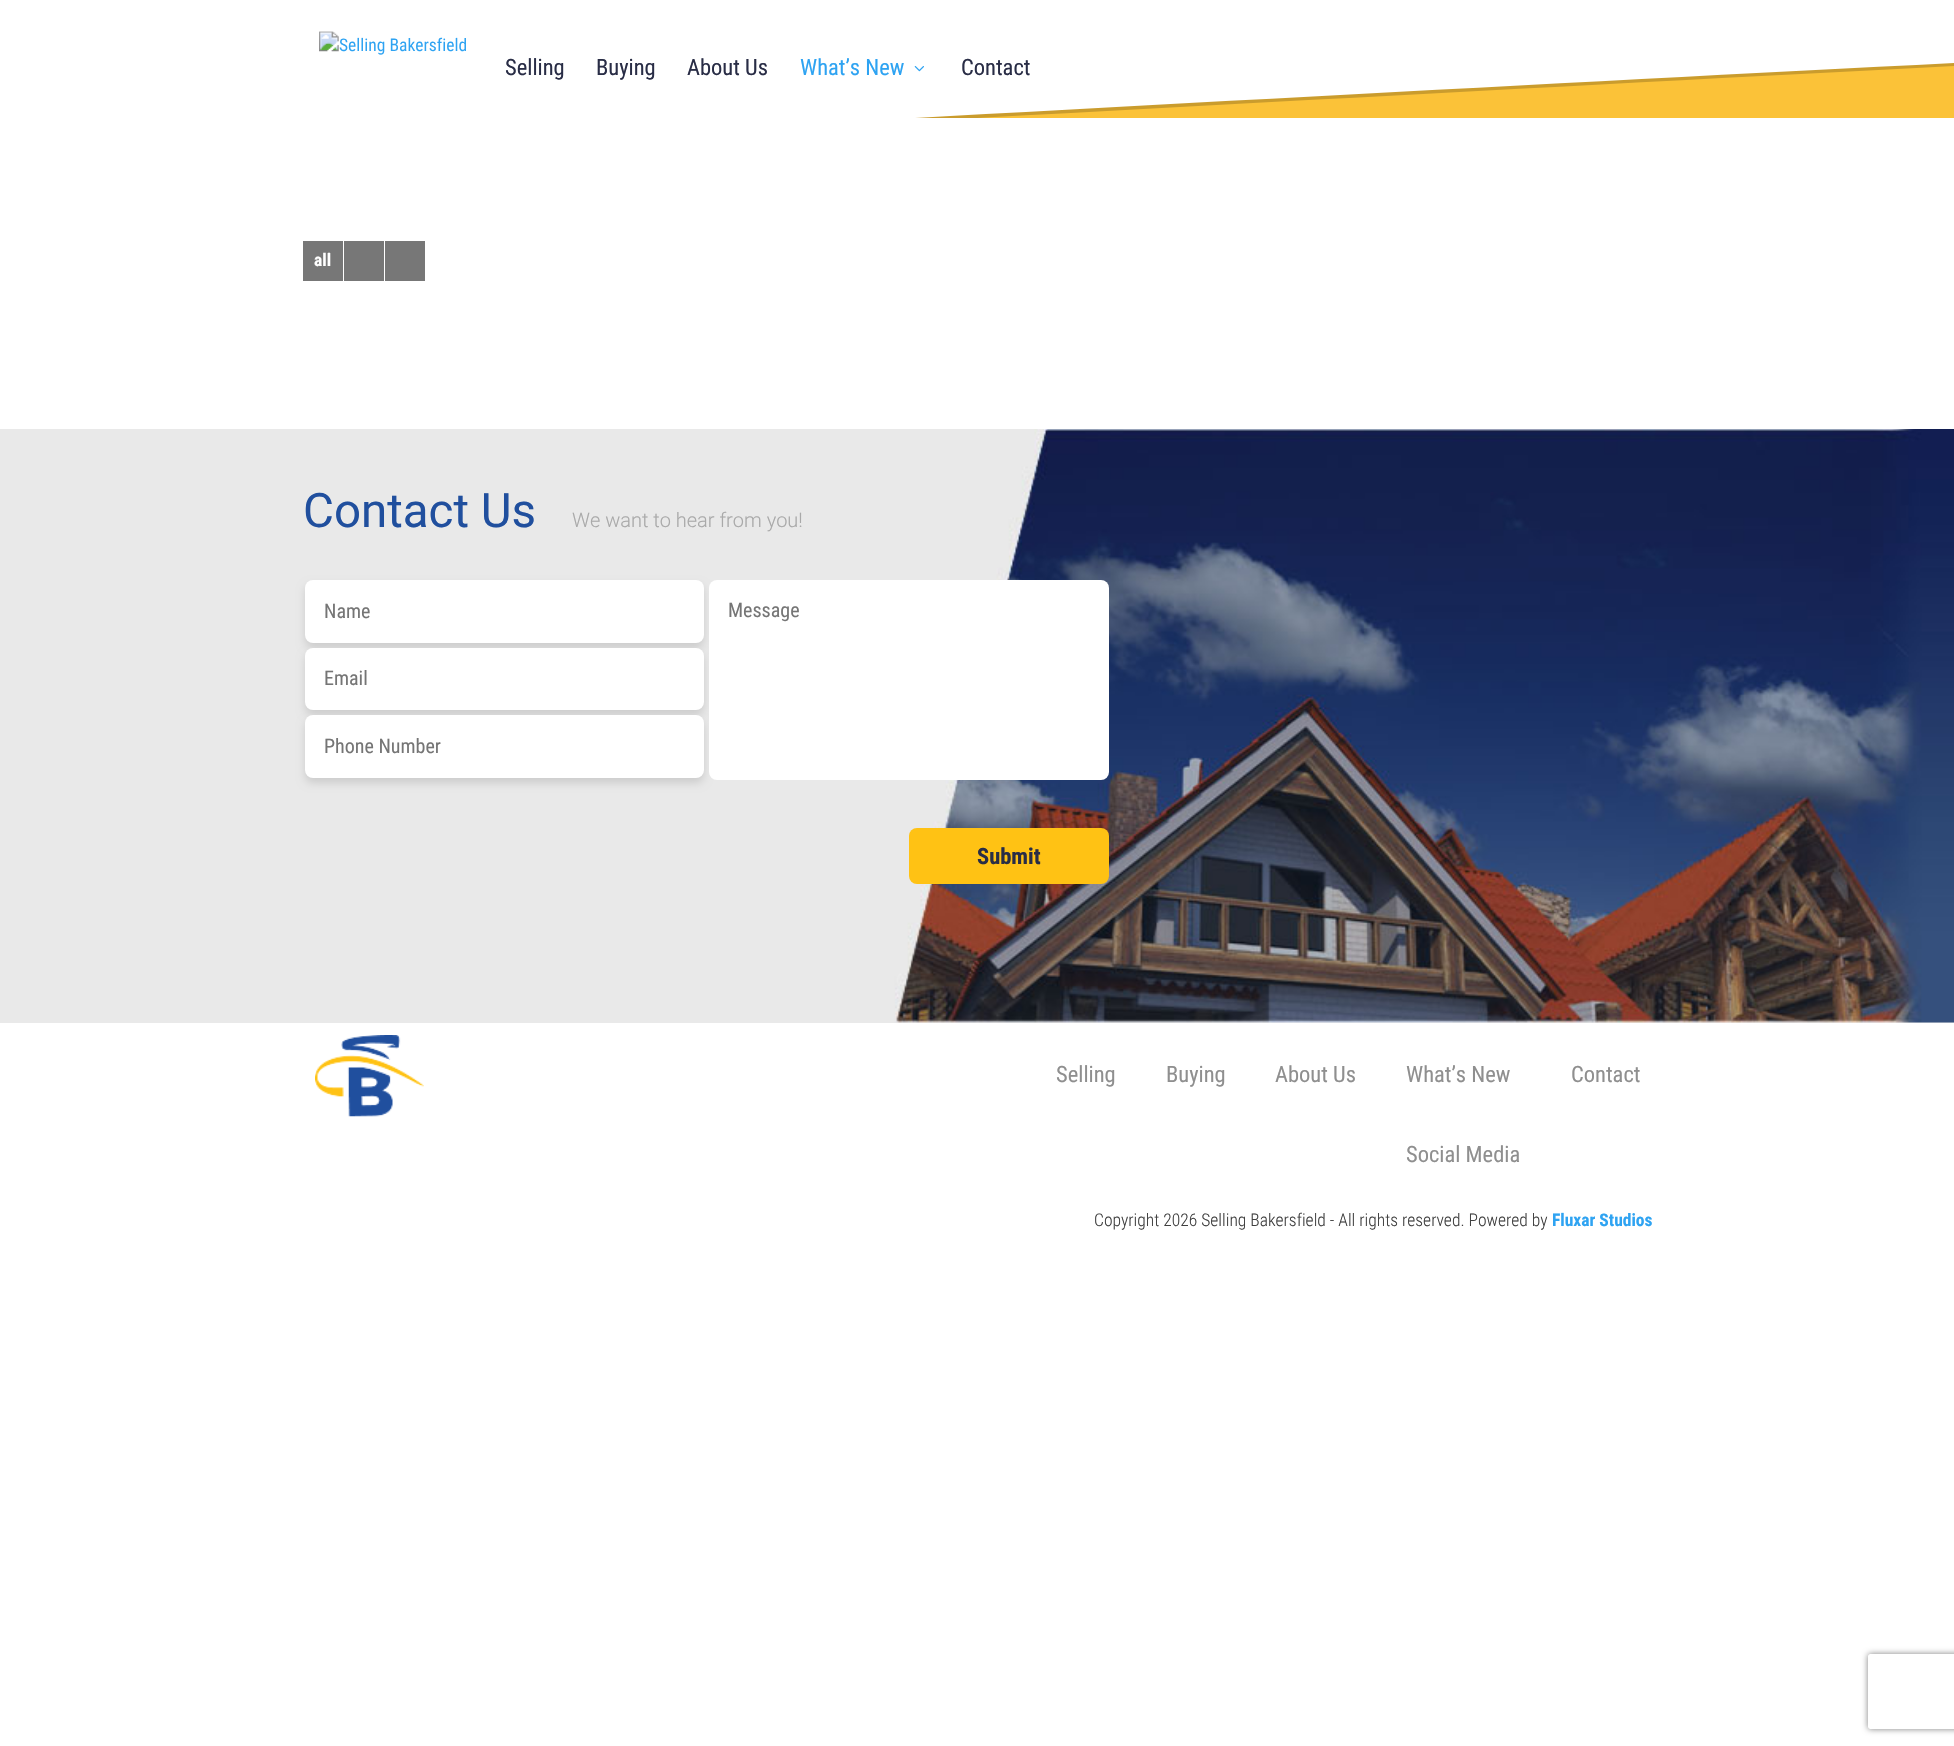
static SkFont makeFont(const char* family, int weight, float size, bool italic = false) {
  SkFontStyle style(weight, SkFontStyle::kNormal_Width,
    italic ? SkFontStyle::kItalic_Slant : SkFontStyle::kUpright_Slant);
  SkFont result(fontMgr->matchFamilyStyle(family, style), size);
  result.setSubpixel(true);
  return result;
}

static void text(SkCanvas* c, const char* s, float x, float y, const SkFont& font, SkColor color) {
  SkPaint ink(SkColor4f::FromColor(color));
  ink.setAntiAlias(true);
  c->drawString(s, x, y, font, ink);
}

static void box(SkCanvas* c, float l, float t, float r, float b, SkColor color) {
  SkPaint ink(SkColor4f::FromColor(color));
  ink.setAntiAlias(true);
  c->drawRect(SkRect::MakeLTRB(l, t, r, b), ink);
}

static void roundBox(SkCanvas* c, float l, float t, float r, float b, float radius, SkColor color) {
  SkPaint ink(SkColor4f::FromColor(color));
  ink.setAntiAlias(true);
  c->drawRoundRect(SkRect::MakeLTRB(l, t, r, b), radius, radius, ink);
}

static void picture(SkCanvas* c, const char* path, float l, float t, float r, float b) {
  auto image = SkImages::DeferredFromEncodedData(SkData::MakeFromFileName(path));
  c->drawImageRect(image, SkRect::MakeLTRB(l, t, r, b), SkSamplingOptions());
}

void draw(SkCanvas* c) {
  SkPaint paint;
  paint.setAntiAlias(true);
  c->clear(0xffffffff);
  paint.setColor(0xfffbc238);
  c->drawPath(SkPathBuilder().moveTo(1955, 197).cubicTo(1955, 197, 806, 100, 0, 100).lineTo(0, 2).lineTo(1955, 2).close().detach(), paint);
  paint.setColor(0xffca9c2d);
  c->drawPath(SkPathBuilder().moveTo(0, 172).cubicTo(0, 172, 1159, 107, 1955, 66).lineTo(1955, 5).lineTo(0, 5).close().detach(), paint);
  paint.setColor(0xffffffff);
  c->drawPath(SkPathBuilder().moveTo(0, 169).cubicTo(0, 169, 1159, 103, 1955, 63).lineTo(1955, 1).lineTo(0, 1).close().detach(), paint);
  picture(c, "img_01.png", 319, 31, 466, 55);
  SkFont face1 = makeFont("Roboto Condensed", 400, 22.5f);
  text(c, "Selling", 505, 75, face1, 0xff292d46);
  text(c, "Buying", 596, 75, face1, 0xff292d46);
  text(c, "About Us", 687, 75, face1, 0xff292d46);
  text(c, "What’s New", 800, 75, face1, 0xff2ea3f2);
  picture(c, "img_02.png", 914, 66, 924, 72);
  text(c, "Contact", 961, 75, face1, 0xff292d46);
  box(c, 0, 118, 1954, 197, 0xffffffff);
  box(c, 303, 241, 343, 281, 0xff777777);
  SkFont face2 = makeFont("Roboto Condensed", 700, 17.5f);
  text(c, "all", 314, 266, face2, 0xffffffff);
  box(c, 344, 241, 384, 281, 0xff777777);
  box(c, 385, 241, 425, 281, 0xff777777);
  box(c, 0, 1022, 1954, 1023, 0xffe9e9e9);
  picture(c, "img_03.png", 0, 429, 1954, 1023);
  SkFont face3 = makeFont("Roboto", 400, 47.5f);
  text(c, "Contact Us", 303, 527, face3, 0xff204f9e);
  SkFont face4 = makeFont("Roboto", 300, 20);
  text(c, "We want to hear from you!", 572, 527, face4, 0xffa9a9a9);
  paint.setColor(0xffcccccc);
  paint.setMaskFilter(SkMaskFilter::MakeBlur(kNormal_SkBlurStyle, 4));
  c->drawRoundRect(SkRect::MakeLTRB(305, 585, 704, 648), 8, 8, paint);
  paint.setMaskFilter(nullptr);
  roundBox(c, 305, 580, 704, 643, 8, 0xffffffff);
  SkFont face5 = makeFont("Roboto Condensed", 400, 20);
  text(c, "Name", 324, 618, face5, 0xff757575);
  paint.setMaskFilter(SkMaskFilter::MakeBlur(kNormal_SkBlurStyle, 4));
  c->drawRoundRect(SkRect::MakeLTRB(305, 653, 704, 715), 8, 8, paint);
  paint.setMaskFilter(nullptr);
  roundBox(c, 305, 648, 704, 710, 8, 0xffffffff);
  text(c, "Email", 324, 685, face5, 0xff757575);
  paint.setMaskFilter(SkMaskFilter::MakeBlur(kNormal_SkBlurStyle, 4));
  c->drawRoundRect(SkRect::MakeLTRB(305, 720, 704, 783), 8, 8, paint);
  paint.setMaskFilter(nullptr);
  roundBox(c, 305, 715, 704, 778, 8, 0xffffffff);
  text(c, "Phone Number", 324, 753, face5, 0xff757575);
  roundBox(c, 709, 580, 1109, 780, 8, 0xffffffff);
  text(c, "Message", 728, 617, face5, 0xff757575);
  roundBox(c, 909, 828, 1109, 884, 8, 0xffffc214);
  SkFont face6 = makeFont("Roboto Condensed", 700, 22.5f);
  text(c, "Submit", 977, 864, face6, 0xff292d46);
  picture(c, "img_04.png", 315, 1035, 424, 1117);
  text(c, "Selling", 1056, 1082, face1, 0xff8f8f8f);
  text(c, "Buying", 1166, 1082, face1, 0xff8f8f8f);
  text(c, "About Us", 1275, 1082, face1, 0xff8f8f8f);
  text(c, "What’s New", 1406, 1082, face1, 0xff8f8f8f);
  text(c, "Social Media", 1406, 1162, face1, 0xff8f8f8f);
  text(c, "Contact", 1571, 1082, face1, 0xff8f8f8f);
  SkFont face7 = makeFont("Roboto Condensed", 300, 17.5f);
  text(c, "Copyright 2026 Selling Bakersfield - All rights reserved. Powered by", 1094, 1226, face7, 0xff3f3f3f);
  text(c, "Fluxar Studios", 1552, 1226, face2, 0xff2ea3f2);
  c->save();
  c->clipPath(SkPathBuilder(SkPathFillType::kEvenOdd).moveTo(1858, 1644).lineTo(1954, 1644).lineTo(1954, 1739).lineTo(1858, 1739).close().moveTo(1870.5f, 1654).lineTo(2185.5f, 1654).cubicTo(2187, 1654, 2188, 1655, 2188, 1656.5f).lineTo(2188, 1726.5f).cubicTo(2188, 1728, 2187, 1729, 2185.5f, 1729).lineTo(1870.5f, 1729).cubicTo(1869, 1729, 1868, 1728, 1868, 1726.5f).lineTo(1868, 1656.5f).cubicTo(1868, 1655, 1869, 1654, 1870.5f, 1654).close().detach(), true);
  paint.setColor(0xff808080);
  paint.setMaskFilter(SkMaskFilter::MakeBlur(kNormal_SkBlurStyle, 3));
  c->drawRoundRect(SkRect::MakeLTRB(1868, 1654, 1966, 1729), 2.5f, 2.5f, paint);
  paint.setMaskFilter(nullptr);
  c->restore();
}
